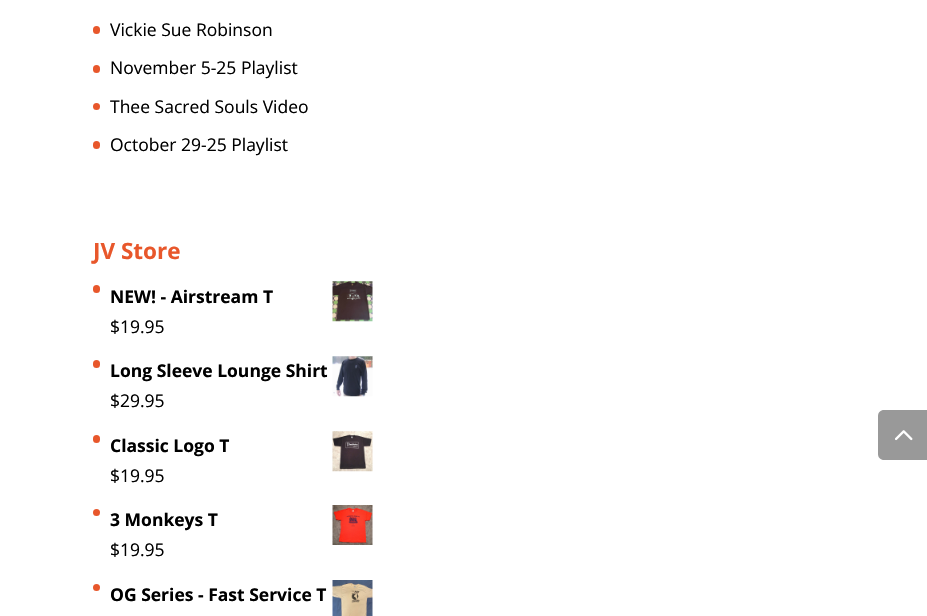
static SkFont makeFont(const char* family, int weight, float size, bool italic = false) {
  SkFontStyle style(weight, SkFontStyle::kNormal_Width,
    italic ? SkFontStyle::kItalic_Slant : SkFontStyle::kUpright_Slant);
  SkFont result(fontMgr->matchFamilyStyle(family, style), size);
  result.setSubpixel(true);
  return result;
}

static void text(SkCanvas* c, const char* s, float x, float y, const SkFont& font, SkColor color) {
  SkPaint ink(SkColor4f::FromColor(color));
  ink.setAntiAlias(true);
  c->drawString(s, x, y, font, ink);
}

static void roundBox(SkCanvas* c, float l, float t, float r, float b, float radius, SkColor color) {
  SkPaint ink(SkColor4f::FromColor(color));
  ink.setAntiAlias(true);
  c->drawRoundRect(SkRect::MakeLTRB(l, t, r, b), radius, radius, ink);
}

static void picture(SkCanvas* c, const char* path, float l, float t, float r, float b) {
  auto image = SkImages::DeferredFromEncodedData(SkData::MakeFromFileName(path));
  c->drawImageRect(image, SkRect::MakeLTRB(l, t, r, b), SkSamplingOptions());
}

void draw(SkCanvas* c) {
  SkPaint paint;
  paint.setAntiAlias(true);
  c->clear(0xffffffff);
  roundBox(c, 93, 26, 100, 34, 3.5f, 0xffe8572b);
  SkFont face1 = makeFont("Open Sans", 400, 17.5f);
  text(c, "Vickie Sue Robinson", 110, 36, face1, 0xff000000);
  roundBox(c, 93, 65, 100, 73, 3.5f, 0xffe8572b);
  text(c, "November 5-25 Playlist", 110, 74, face1, 0xff000000);
  paint.setColor(0xffe8572b);
  c->drawCircle(96.5f, 106.5f, 3.5f, paint);
  text(c, "Thee Sacred Souls Video", 110, 113, face1, 0xff000000);
  roundBox(c, 93, 141, 100, 149, 3.5f, 0xffe8572b);
  text(c, "October 29-25 Playlist", 110, 151, face1, 0xff000000);
  SkFont face2 = makeFont("Open Sans", 700, 22.5f);
  text(c, "JV Store", 93, 259, face2, 0xffe8572b);
  roundBox(c, 93, 285, 100, 293, 3.5f, 0xffe8572b);
  SkFont face3 = makeFont("Open Sans", 700, 17.5f);
  text(c, "NEW! - Airstream T", 110, 303, face3, 0xff000000);
  picture(c, "img_01.png", 332, 281, 373, 322);
  text(c, "$19.95", 110, 333, face1, 0xff000000);
  roundBox(c, 93, 360, 100, 368, 3.5f, 0xffe8572b);
  text(c, "Long Sleeve Lounge Shirt", 110, 377, face3, 0xff000000);
  picture(c, "img_02.png", 332, 356, 373, 397);
  text(c, "$29.95", 110, 407, face1, 0xff000000);
  roundBox(c, 93, 435, 100, 443, 3.5f, 0xffe8572b);
  text(c, "Classic Logo T", 110, 452, face3, 0xff000000);
  picture(c, "img_03.png", 332, 431, 373, 472);
  text(c, "$19.95", 110, 482, face1, 0xff000000);
  c->drawCircle(96.5f, 512.5f, 3.5f, paint);
  text(c, "3 Monkeys T", 110, 526, face3, 0xff000000);
  picture(c, "img_04.png", 332, 505, 373, 545);
  text(c, "$19.95", 110, 556, face1, 0xff000000);
  c->drawCircle(96.5f, 587.5f, 3.5f, paint);
  text(c, "OG Series - Fast Service T", 110, 601, face3, 0xff000000);
  picture(c, "img_05.png", 332, 580, 373, 616);
  paint.setColor(0xff999999);
  c->drawPath(SkPathBuilder().moveTo(884, 410).lineTo(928, 410).lineTo(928, 460).lineTo(884, 460).cubicTo(880.5f, 460, 878, 457.5f, 878, 454).lineTo(878, 416).cubicTo(878, 412.5f, 880.5f, 410, 884, 410).close().detach(), paint);
  picture(c, "img_06.png", 895, 430, 913, 441);
}
